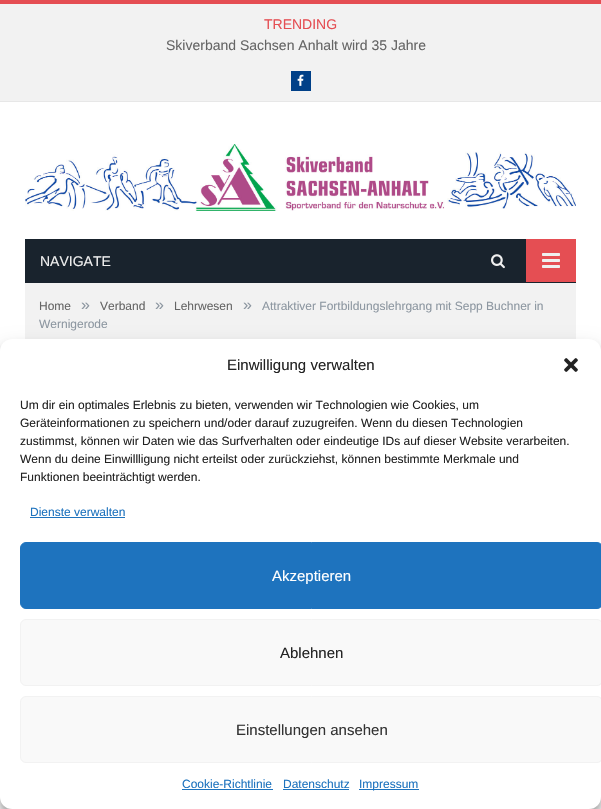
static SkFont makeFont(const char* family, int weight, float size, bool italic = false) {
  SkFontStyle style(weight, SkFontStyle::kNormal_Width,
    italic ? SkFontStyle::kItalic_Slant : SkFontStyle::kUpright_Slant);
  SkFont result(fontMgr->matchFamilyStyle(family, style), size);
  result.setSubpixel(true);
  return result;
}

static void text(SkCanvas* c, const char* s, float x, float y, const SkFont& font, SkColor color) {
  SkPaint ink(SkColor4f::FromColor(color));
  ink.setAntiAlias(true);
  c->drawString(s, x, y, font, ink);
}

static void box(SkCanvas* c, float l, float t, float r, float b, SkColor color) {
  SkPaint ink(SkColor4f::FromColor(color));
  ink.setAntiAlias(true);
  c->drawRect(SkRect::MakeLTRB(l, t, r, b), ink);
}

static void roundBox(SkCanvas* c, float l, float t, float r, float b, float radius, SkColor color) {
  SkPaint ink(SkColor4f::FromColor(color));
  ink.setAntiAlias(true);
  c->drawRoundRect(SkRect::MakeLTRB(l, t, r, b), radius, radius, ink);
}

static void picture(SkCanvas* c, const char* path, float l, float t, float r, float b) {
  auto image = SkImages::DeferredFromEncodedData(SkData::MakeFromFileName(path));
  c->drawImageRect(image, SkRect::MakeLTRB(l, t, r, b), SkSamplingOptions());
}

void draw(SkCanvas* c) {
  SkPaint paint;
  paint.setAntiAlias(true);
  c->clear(0xffffffff);
  box(c, 0, 4, 601, 101, 0xfff2f2f2);
  box(c, 0, 0, 601, 4, 0xffe54e53);
  box(c, 0, 101, 601, 102, 0xffe7e7e7);
  SkFont face1 = makeFont("Liberation Sans", 400, 14);
  text(c, "TRENDING", 264, 29, face1, 0xffe54e53);
  text(c, "Skiverband Sachsen Anhalt wird 35 Jahre", 166, 50, face1, 0xff656565);
  box(c, 291, 71, 311, 91, 0xff004088);
  picture(c, "img_01.png", 297, 74, 304, 86);
  picture(c, "img_02.png", 25, 144, 576, 211);
  box(c, 25, 239, 576, 283, 0xff19232d);
  text(c, "NAVIGATE", 40, 266, face1, 0xffefefef);
  picture(c, "img_03.png", 491, 254, 505, 269);
  box(c, 526, 239, 576, 282, 0xffe54e53);
  picture(c, "img_04.png", 542, 253, 560, 268);
  box(c, 25, 283, 576, 339, 0xfff2f2f2);
  SkFont face2 = makeFont("Liberation Sans", 400, 12);
  text(c, "Home", 39, 310, face2, 0xff656565);
  SkFont face3 = makeFont("Liberation Sans", 400, 16);
  text(c, "»", 81, 310, face3, 0xff8d97a1);
  text(c, "Verband", 100, 310, face2, 0xff656565);
  text(c, "»", 155, 310, face3, 0xff8d97a1);
  text(c, "Lehrwesen", 174, 310, face2, 0xff656565);
  text(c, "»", 243, 310, face3, 0xff8d97a1);
  text(c, "Attraktiver Fortbildungslehrgang mit Sepp Buchner in", 262, 310, face2, 0xff8d97a1);
  text(c, "Wernigerode", 39, 328, face2, 0xff8d97a1);
  paint.setColor(0x3b000000);
  paint.setMaskFilter(SkMaskFilter::MakeBlur(kNormal_SkBlurStyle, 3));
  c->drawRoundRect(SkRect::MakeLTRB(0, 345, 601, 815), 12, 12, paint);
  paint.setMaskFilter(nullptr);
  paint.setColor(0x30000000);
  paint.setMaskFilter(SkMaskFilter::MakeBlur(kNormal_SkBlurStyle, 10));
  c->drawRoundRect(SkRect::MakeLTRB(0, 349, 601, 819), 12, 12, paint);
  paint.setMaskFilter(nullptr);
  roundBox(c, 0, 339, 601, 809, 12, 0xffffffff);
  SkFont face4 = makeFont("Liberation Sans", 400, 15);
  text(c, "Einwilligung verwalten", 227, 370, face4, 0xff222222);
  picture(c, "img_05.png", 564, 358, 578, 372);
  text(c, "Um dir ein optimales Erlebnis zu bieten, verwenden wir Technologien wie Cookies, um", 20, 409, face2, 0xff222222);
  text(c, "Geräteinformationen zu speichern und/oder darauf zuzugreifen. Wenn du diesen Technologien", 20, 427, face2, 0xff222222);
  text(c, "zustimmst, können wir Daten wie das Surfverhalten oder eindeutige IDs auf dieser Website verarbeiten.", 20, 445, face2, 0xff222222);
  text(c, "Wenn du deine Einwillligung nicht erteilst oder zurückziehst, können bestimmte Merkmale und", 20, 463, face2, 0xff222222);
  text(c, "Funktionen beeinträchtigt werden.", 20, 481, face2, 0xff222222);
  text(c, "Dienste verwalten", 30, 516, face2, 0xff1e73be);
  box(c, 30, 517, 125, 518, 0xff1e73be);
  paint.setColor(0xff1e73be);
  c->drawRoundRect(SkRect::MakeLTRB(20.5f, 542.5f, 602.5f, 608.5f), 5.5f, 5.5f, paint);
  paint.setStyle(SkPaint::kStroke_Style);
  paint.setStrokeWidth(1);
  c->drawRoundRect(SkRect::MakeLTRB(20.5f, 542.5f, 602.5f, 608.5f), 5.5f, 5.5f, paint);
  text(c, "Akzeptieren", 272, 581, face4, 0xffffffff);
  paint.setStyle(SkPaint::kFill_Style);
  paint.setColor(0xfff9f9f9);
  c->drawRoundRect(SkRect::MakeLTRB(20.5f, 619.5f, 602.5f, 685.5f), 5.5f, 5.5f, paint);
  paint.setStyle(SkPaint::kStroke_Style);
  paint.setColor(0xfff2f2f2);
  c->drawRoundRect(SkRect::MakeLTRB(20.5f, 619.5f, 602.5f, 685.5f), 5.5f, 5.5f, paint);
  text(c, "Ablehnen", 280, 658, face4, 0xff222222);
  paint.setStyle(SkPaint::kFill_Style);
  paint.setColor(0xfff9f9f9);
  c->drawRoundRect(SkRect::MakeLTRB(20.5f, 696.5f, 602.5f, 762.5f), 5.5f, 5.5f, paint);
  paint.setStyle(SkPaint::kStroke_Style);
  paint.setColor(0xfff2f2f2);
  c->drawRoundRect(SkRect::MakeLTRB(20.5f, 696.5f, 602.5f, 762.5f), 5.5f, 5.5f, paint);
  text(c, "Einstellungen ansehen", 236, 735, face4, 0xff333333);
  text(c, "Cookie-Richtlinie", 182, 788, face2, 0xff1e73be);
  box(c, 182, 789, 273, 790, 0xff1e73be);
  text(c, "Datenschutz", 283, 788, face2, 0xff1e73be);
  box(c, 283, 789, 349, 790, 0xff1e73be);
  box(c, 359, 789, 419, 790, 0xff1e73be);
  text(c, "Impressum", 359, 788, face2, 0xff1e73be);
}
